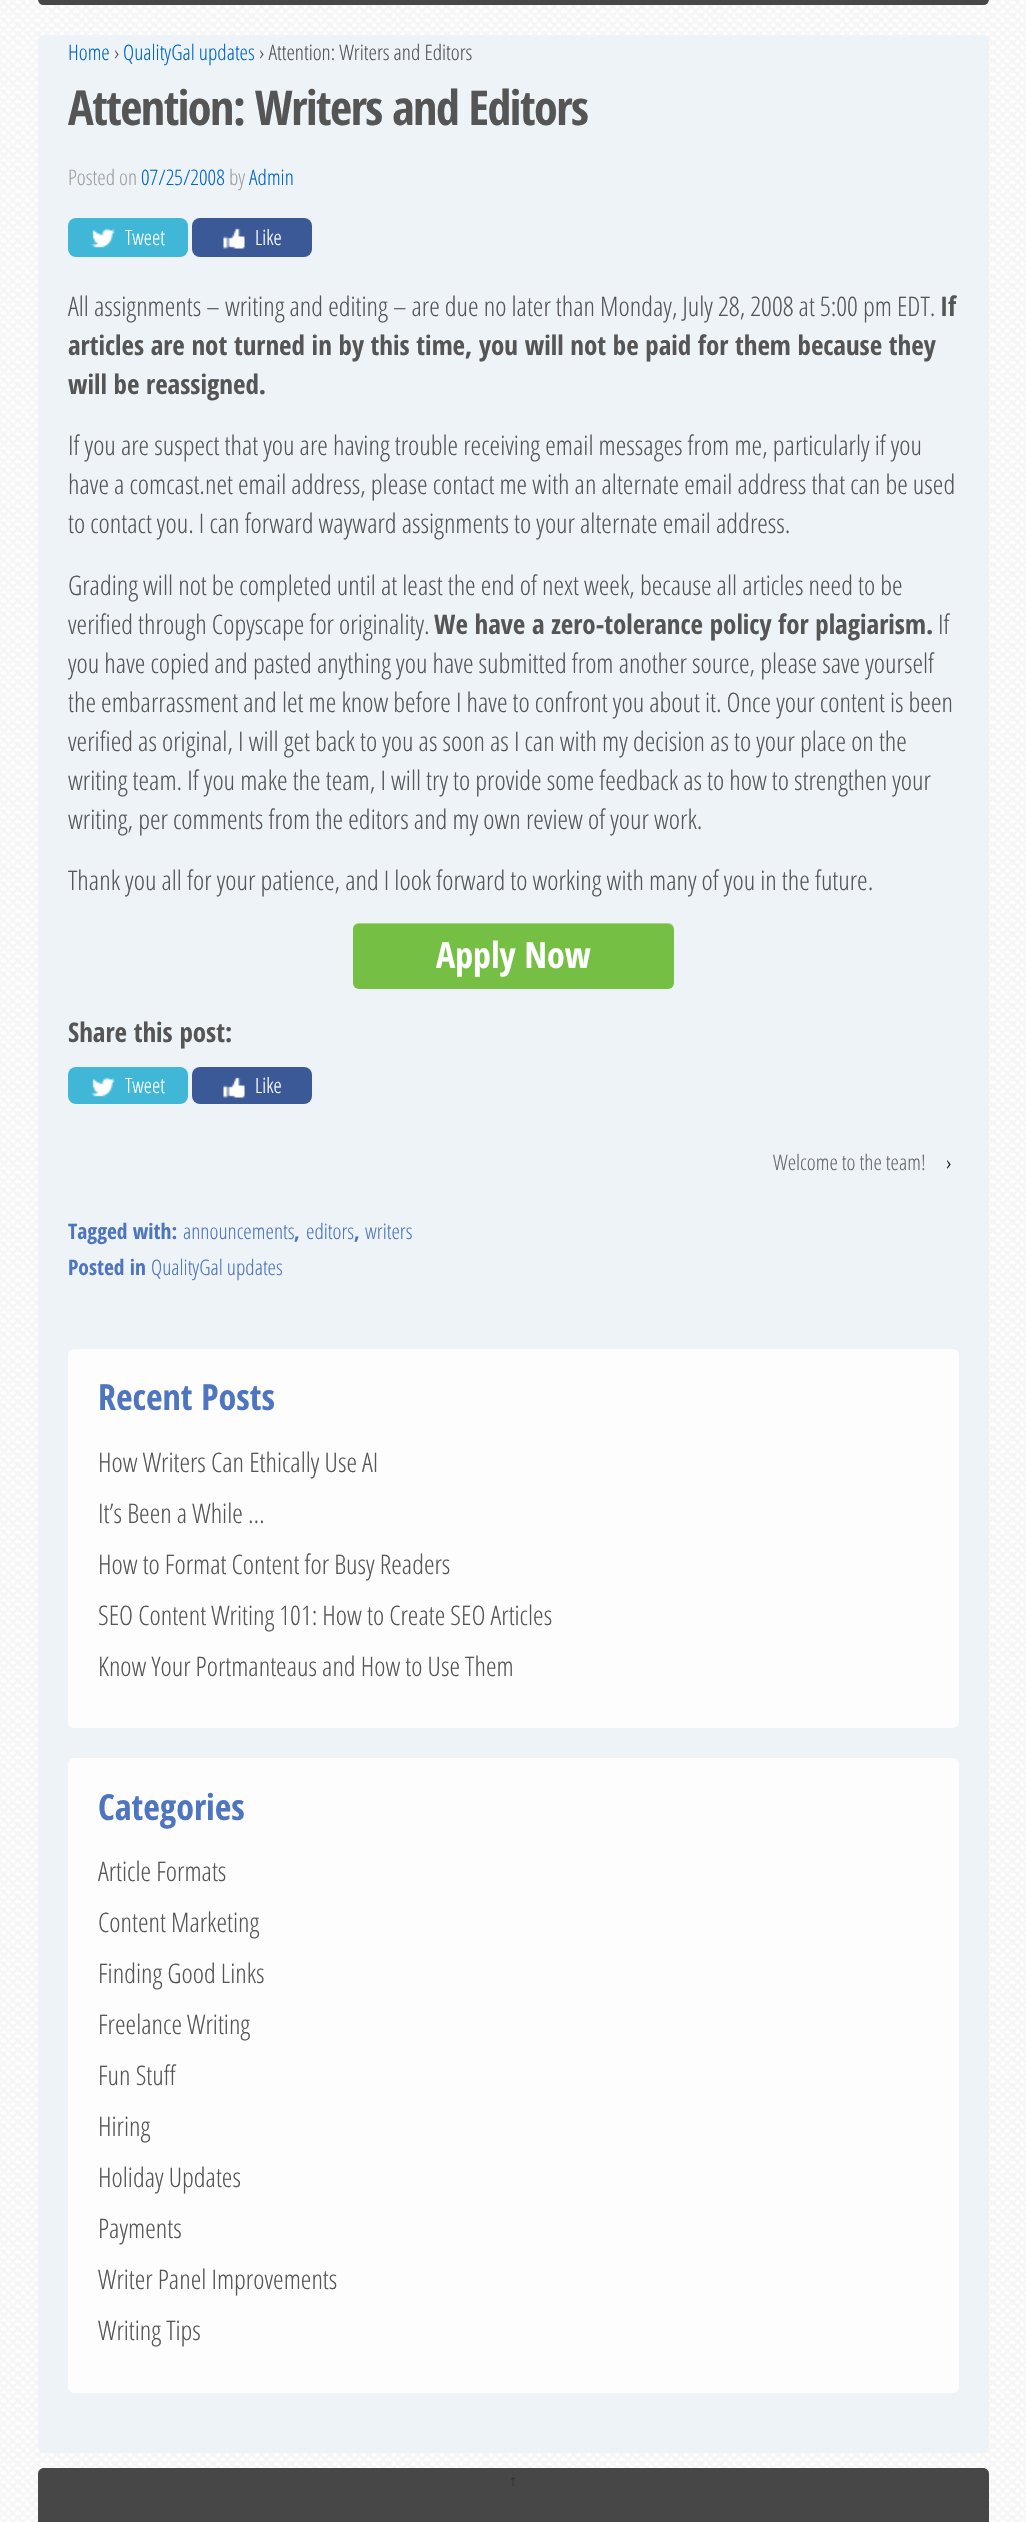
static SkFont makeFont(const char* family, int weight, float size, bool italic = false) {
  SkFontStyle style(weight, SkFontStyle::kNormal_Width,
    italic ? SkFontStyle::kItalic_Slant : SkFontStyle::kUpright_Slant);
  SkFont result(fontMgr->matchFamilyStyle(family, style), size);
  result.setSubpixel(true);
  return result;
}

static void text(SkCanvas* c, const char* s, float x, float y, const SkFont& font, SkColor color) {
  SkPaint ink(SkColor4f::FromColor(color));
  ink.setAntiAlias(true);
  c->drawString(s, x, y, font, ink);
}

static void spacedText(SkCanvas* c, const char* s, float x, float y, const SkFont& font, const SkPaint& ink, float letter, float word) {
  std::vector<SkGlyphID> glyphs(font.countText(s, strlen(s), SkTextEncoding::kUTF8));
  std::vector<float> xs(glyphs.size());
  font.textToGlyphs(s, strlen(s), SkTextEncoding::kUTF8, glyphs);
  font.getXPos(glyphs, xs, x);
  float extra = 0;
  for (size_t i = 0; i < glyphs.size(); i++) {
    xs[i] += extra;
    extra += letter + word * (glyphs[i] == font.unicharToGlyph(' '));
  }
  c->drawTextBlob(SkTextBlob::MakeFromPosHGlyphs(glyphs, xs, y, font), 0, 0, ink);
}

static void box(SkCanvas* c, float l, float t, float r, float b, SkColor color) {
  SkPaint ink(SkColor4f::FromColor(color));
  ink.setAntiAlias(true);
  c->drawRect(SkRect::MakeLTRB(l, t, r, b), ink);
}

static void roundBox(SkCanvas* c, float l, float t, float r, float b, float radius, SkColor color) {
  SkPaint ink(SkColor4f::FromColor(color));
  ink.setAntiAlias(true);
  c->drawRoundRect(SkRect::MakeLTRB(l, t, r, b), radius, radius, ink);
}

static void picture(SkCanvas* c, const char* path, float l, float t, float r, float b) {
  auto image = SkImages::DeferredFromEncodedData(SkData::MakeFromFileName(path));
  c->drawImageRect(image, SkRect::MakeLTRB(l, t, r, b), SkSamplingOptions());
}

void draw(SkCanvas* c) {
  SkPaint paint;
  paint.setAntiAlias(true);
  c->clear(0xffffffff);
  picture(c, "img_01.png", 0, 0, 1026, 2522);
  roundBox(c, 38, -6, 989, 5, 6, 0xff484747);
  roundBox(c, 38, 35, 989, 2453, 6, 0xffeef3f7);
  SkFont face1 = makeFont("Open Sans Condensed", 300, 21.5f);
  text(c, "Home", 68, 60, face1, 0xff0066cc);
  text(c, "›", 114, 60, face1, 0xff555555);
  text(c, "QualityGal updates", 123, 60, face1, 0xff0066cc);
  text(c, "› Attention: Writers and Editors", 259, 60, face1, 0xff555555);
  SkFont face2 = makeFont("Open Sans Condensed", 700, 48);
  paint.setColor(0xff555555);
  spacedText(c, "Attention: Writers and Editors", 68, 125, face2, paint, -1.5f, 0);
  text(c, "Posted on", 68, 185, face1, 0xff9f9f9f);
  text(c, "07/25/2008", 141, 185, face1, 0xff0066cc);
  text(c, "by", 229, 185, face1, 0xff9f9f9f);
  text(c, "Admin", 249, 185, face1, 0xff0066cc);
  roundBox(c, 68, 218, 188, 257, 8, 0xff41b7d8);
  picture(c, "img_02.png", 91, 228, 115, 248);
  SkFont face3 = makeFont("Open Sans Condensed", 300, 21);
  text(c, "Tweet", 125, 245, face3, 0xffffffff);
  roundBox(c, 192, 218, 312, 257, 8, 0xff3b5997);
  picture(c, "img_03.png", 223, 228, 245, 249);
  text(c, "Like", 255, 245, face3, 0xffffffff);
  SkFont face4 = makeFont("Open Sans Condensed", 300, 27);
  text(c, "All assignments – writing and editing – are due no later than Monday, July 28, 2008 at 5:00 pm EDT.", 68, 316, face4, 0xff555555);
  SkFont face5 = makeFont("Open Sans Condensed", 700, 27);
  text(c, "If", 940, 316, face5, 0xff555555);
  text(c, "articles are not turned in by this time, you will not be paid for them because they", 68, 355, face5, 0xff555555);
  text(c, "will be reassigned.", 68, 394, face5, 0xff555555);
  text(c, "If you are suspect that you are having trouble receiving email messages from me, particularly if you", 68, 455, face4, 0xff555555);
  text(c, "have a comcast.net email address, please contact me with an alternate email address that can be used", 68, 494, face4, 0xff555555);
  text(c, "to contact you. I can forward wayward assignments to your alternate email address.", 68, 533, face4, 0xff555555);
  text(c, "Grading will not be completed until at least the end of next week, because all articles need to be", 68, 595, face4, 0xff555555);
  text(c, "verified through Copyscape for originality.", 68, 634, face4, 0xff555555);
  text(c, "We have a zero-tolerance policy for plagiarism.", 434, 634, face5, 0xff555555);
  text(c, "If", 938, 634, face4, 0xff555555);
  text(c, "you have copied and pasted anything you have submitted from another source, please save yourself", 68, 673, face4, 0xff555555);
  text(c, "the embarrassment and let me know before I have to confront you about it. Once your content is been", 68, 712, face4, 0xff555555);
  text(c, "verified as original, I will get back to you as soon as I can with my decision as to your place on the", 68, 751, face4, 0xff555555);
  text(c, "writing team. If you make the team, I will try to provide some feedback as to how to strengthen your", 68, 790, face4, 0xff555555);
  text(c, "writing, per comments from the editors and my own review of your work.", 68, 829, face4, 0xff555555);
  text(c, "Thank you all for your patience, and I look forward to working with many of you in the future.", 68, 890, face4, 0xff555555);
  roundBox(c, 353, 923, 674, 989, 6, 0xff75c044);
  paint.setColor(0x4dffffff);
  c->drawPath(SkPathBuilder().moveTo(358, 924).lineTo(668, 924).cubicTo(671, 924, 674, 927, 674, 930).lineTo(674, 929).cubicTo(674, 926, 671, 923, 668, 923).lineTo(359, 923).cubicTo(357, 923, 355, 924, 354, 926).cubicTo(355, 925, 357, 924, 358, 924).close().detach(), paint);
  SkFont face6 = makeFont("Open Sans Condensed", 700, 36);
  text(c, "Apply Now", 436, 968, face6, 0xffffffff);
  text(c, "Share this post:", 68, 1042, face5, 0xff555555);
  roundBox(c, 68, 1067, 188, 1104, 8, 0xff41b7d8);
  picture(c, "img_02.png", 91, 1077, 115, 1097);
  text(c, "Tweet", 125, 1093, face3, 0xffffffff);
  roundBox(c, 192, 1067, 312, 1104, 8, 0xff3b5997);
  picture(c, "img_03.png", 223, 1077, 245, 1098);
  text(c, "Like", 255, 1093, face3, 0xffffffff);
  text(c, "Welcome to the team!", 773, 1170, face1, 0xff686868);
  text(c, "›", 946, 1170, face1, 0xff111111);
  SkFont face7 = makeFont("Open Sans Condensed", 700, 21.5f);
  text(c, "Tagged with:", 68, 1239, face7, 0xff4e75bf);
  text(c, "announcements", 183, 1239, face1, 0xff4e75bf);
  text(c, ",", 294, 1239, face7, 0xff4e75bf);
  text(c, "editors", 306, 1239, face1, 0xff4e75bf);
  text(c, ",", 354, 1239, face7, 0xff4e75bf);
  text(c, "writers", 365, 1239, face1, 0xff4e75bf);
  text(c, "Posted in", 68, 1275, face7, 0xff4e75bf);
  text(c, "QualityGal updates", 151, 1275, face1, 0xff4e75bf);
  roundBox(c, 68, 1349, 959, 1728, 6, 0xfffdfdfd);
  text(c, "Recent Posts", 98, 1410, face6, 0xff4e75bf);
  text(c, "How Writers Can Ethically Use AI", 98, 1472, face4, 0xff555555);
  text(c, "It’s Been a While …", 98, 1523, face4, 0xff555555);
  text(c, "How to Format Content for Busy Readers", 98, 1574, face4, 0xff555555);
  text(c, "SEO Content Writing 101: How to Create SEO Articles", 98, 1625, face4, 0xff555555);
  text(c, "Know Your Portmanteaus and How to Use Them", 98, 1676, face4, 0xff555555);
  roundBox(c, 68, 1758, 959, 2393, 6, 0xfffdfdfd);
  text(c, "Categories", 98, 1820, face6, 0xff4e75bf);
  text(c, "Article Formats", 98, 1881, face4, 0xff555555);
  text(c, "Content Marketing", 98, 1932, face4, 0xff555555);
  text(c, "Finding Good Links", 98, 1983, face4, 0xff555555);
  text(c, "Freelance Writing", 98, 2034, face4, 0xff555555);
  text(c, "Fun Stuff", 98, 2085, face4, 0xff555555);
  text(c, "Hiring", 98, 2136, face4, 0xff555555);
  text(c, "Holiday Updates", 98, 2187, face4, 0xff555555);
  text(c, "Payments", 98, 2238, face4, 0xff555555);
  text(c, "Writer Panel Improvements", 98, 2289, face4, 0xff555555);
  text(c, "Writing Tips", 98, 2340, face4, 0xff555555);
  paint.setColor(0xff484747);
  c->drawPath(SkPathBuilder().moveTo(44, 2468).lineTo(983, 2468).cubicTo(986.5f, 2468, 989, 2470.5f, 989, 2474).lineTo(989, 2493).lineTo(38, 2493).lineTo(38, 2474).cubicTo(38, 2470.5f, 40.5f, 2468, 44, 2468).close().detach(), paint);
  SkFont face8 = makeFont("Liberation Sans", 400, 16);
  text(c, "↑", 509, 2486, face8, 0xff333333);
  box(c, 38, 2493, 989, 2522, 0xff484747);
}
